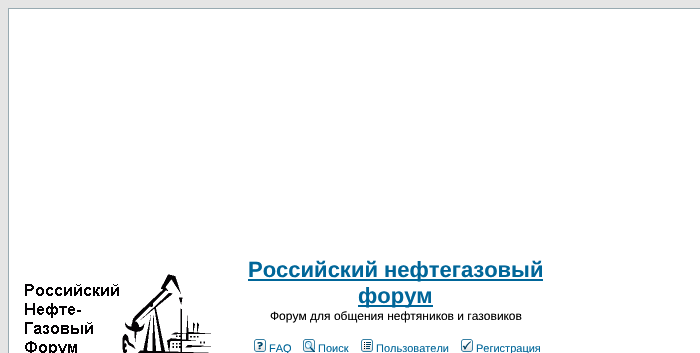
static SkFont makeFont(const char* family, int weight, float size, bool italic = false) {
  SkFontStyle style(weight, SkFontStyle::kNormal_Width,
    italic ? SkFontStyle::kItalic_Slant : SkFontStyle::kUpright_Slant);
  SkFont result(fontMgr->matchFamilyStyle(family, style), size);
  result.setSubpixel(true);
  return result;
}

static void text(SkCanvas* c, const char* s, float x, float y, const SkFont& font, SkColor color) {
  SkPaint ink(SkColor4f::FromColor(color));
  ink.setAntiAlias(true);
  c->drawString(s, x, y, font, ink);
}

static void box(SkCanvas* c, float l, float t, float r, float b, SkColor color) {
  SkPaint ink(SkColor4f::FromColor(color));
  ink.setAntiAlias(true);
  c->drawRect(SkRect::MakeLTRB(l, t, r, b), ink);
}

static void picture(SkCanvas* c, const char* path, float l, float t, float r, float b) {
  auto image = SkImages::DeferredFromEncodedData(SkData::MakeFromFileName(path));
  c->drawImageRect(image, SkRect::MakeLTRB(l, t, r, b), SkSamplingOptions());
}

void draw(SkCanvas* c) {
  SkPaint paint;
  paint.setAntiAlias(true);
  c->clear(0xffe5e5e5);
  paint.setColor(0xffffffff);
  c->drawRect(SkRect::MakeLTRB(8.5f, 8.5f, 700.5f, 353.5f), paint);
  paint.setStyle(SkPaint::kStroke_Style);
  paint.setStrokeWidth(1);
  paint.setColor(0xff98aab1);
  c->drawRect(SkRect::MakeLTRB(8.5f, 8.5f, 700.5f, 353.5f), paint);
  picture(c, "img_01.png", 25, 274, 211, 353);
  box(c, 248, 279, 543, 281, 0xff006699);
  SkFont face1 = makeFont("Liberation Sans", 700, 22);
  text(c, "Российский нефтегазовый", 248, 277, face1, 0xff006699);
  box(c, 358, 305, 433, 307, 0xff006699);
  text(c, "форум", 358, 303, face1, 0xff006699);
  SkFont face2 = makeFont("Liberation Sans", 400, 12);
  text(c, "Форум для общения нефтяников и газовиков", 270, 320, face2, 0xff000000);
  picture(c, "img_02.png", 254, 339, 266, 352);
  SkFont face3 = makeFont("Liberation Sans", 400, 11);
  text(c, "FAQ", 269, 352, face3, 0xff006699);
  picture(c, "img_03.png", 303, 339, 315, 352);
  text(c, "Поиск", 318, 352, face3, 0xff006699);
  picture(c, "img_04.png", 361, 339, 373, 352);
  text(c, "Пользователи", 376, 352, face3, 0xff006699);
  picture(c, "img_05.png", 461, 339, 473, 352);
  text(c, "Регистрация", 476, 352, face3, 0xff006699);
}
